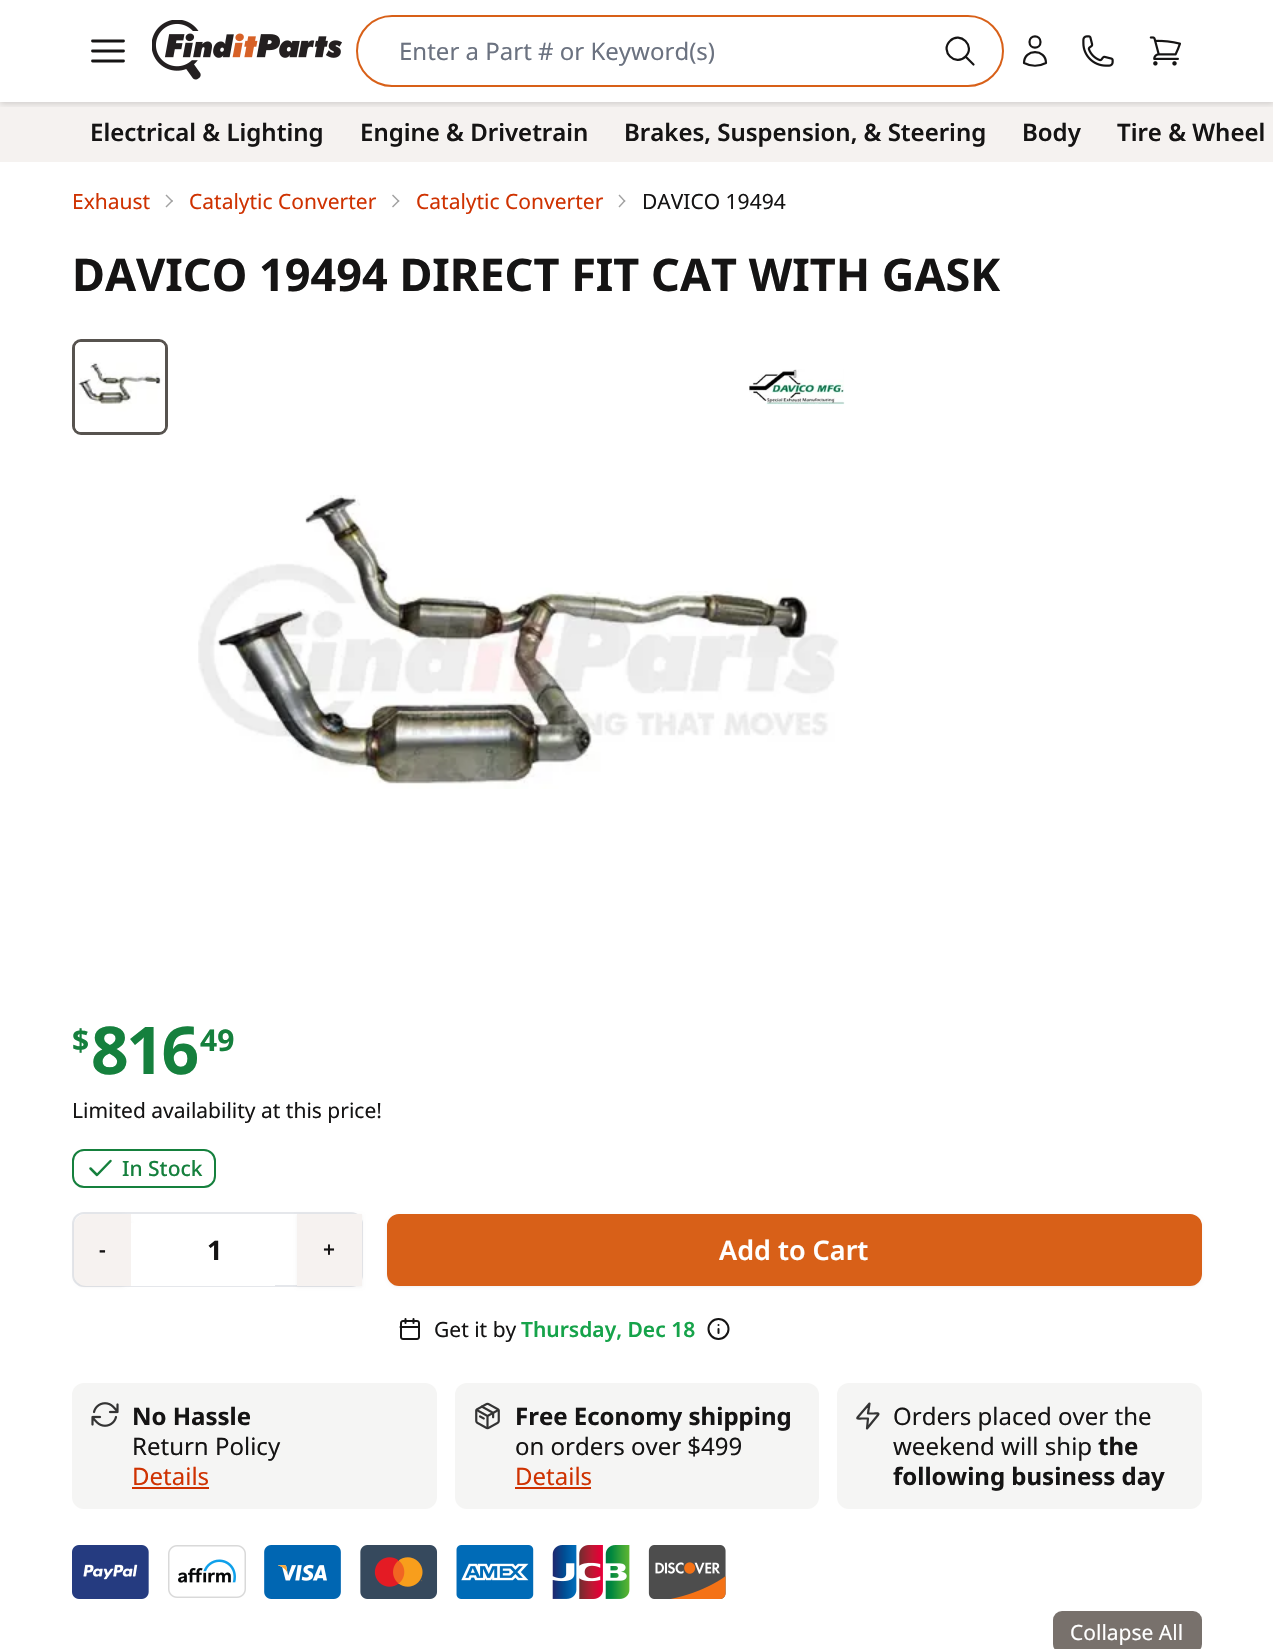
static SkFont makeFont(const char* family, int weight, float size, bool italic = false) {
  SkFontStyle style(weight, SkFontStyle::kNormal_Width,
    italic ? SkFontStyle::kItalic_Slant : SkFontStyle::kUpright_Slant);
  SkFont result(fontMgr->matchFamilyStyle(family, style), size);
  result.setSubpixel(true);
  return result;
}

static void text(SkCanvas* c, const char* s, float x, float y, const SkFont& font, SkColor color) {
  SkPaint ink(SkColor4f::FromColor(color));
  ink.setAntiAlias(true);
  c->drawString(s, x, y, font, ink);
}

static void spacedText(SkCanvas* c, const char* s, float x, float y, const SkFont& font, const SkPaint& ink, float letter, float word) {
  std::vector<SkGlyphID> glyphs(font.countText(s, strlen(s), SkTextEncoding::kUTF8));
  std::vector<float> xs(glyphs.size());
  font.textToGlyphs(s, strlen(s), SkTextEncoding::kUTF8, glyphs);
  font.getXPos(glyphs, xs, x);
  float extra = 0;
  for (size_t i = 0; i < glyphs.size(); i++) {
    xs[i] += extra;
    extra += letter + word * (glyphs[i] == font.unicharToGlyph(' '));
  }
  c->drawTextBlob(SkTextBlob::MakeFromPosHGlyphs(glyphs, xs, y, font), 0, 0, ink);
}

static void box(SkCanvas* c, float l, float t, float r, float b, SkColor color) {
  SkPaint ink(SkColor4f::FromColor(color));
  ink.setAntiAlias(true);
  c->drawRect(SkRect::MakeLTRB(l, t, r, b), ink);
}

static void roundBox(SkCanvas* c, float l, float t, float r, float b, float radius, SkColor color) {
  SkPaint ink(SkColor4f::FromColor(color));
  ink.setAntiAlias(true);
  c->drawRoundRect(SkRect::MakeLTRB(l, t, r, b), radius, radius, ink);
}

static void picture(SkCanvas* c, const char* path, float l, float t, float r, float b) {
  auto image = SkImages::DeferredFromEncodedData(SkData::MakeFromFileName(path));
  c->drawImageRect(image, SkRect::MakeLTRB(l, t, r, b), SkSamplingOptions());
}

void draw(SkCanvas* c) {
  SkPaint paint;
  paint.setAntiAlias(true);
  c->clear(0xffffffff);
  box(c, 0, 102, 1273, 162, 0xfff5f2f0);
  c->save();
  c->clipRect(SkRect::MakeLTRB(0, 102, 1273, 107));
  paint.setColor(0x26000000);
  paint.setMaskFilter(SkMaskFilter::MakeBlur(kNormal_SkBlurStyle, 3));
  c->drawRect(SkRect::MakeLTRB(0, 2, 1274, 104), paint);
  paint.setMaskFilter(nullptr);
  c->restore();
  paint.setStyle(SkPaint::kStroke_Style);
  paint.setStrokeWidth(2.8f);
  paint.setStrokeCap(SkPaint::kRound_Cap);
  paint.setStrokeJoin(SkPaint::kRound_Join);
  paint.setColor(0xff151414);
  c->drawPath(SkPathBuilder().moveTo(92.5f, 41).lineTo(123.5f, 41).moveTo(92.5f, 51).lineTo(123.5f, 51).moveTo(92.5f, 61).lineTo(123.5f, 61).detach(), paint);
  picture(c, "img_01.png", 152, 20, 342, 80);
  paint.setStrokeWidth(2);
  paint.setStrokeCap(SkPaint::kButt_Cap);
  paint.setStrokeJoin(SkPaint::kMiter_Join);
  paint.setColor(0xffd86018);
  c->drawRoundRect(SkRect::MakeLTRB(357, 16, 1003, 86), 35, 35, paint);
  SkFont face1 = makeFont("Noto Sans", 400, 24);
  text(c, "Enter a Part # or Keyword(s)", 399, 60, face1, 0xff6b7280);
  paint.setStrokeWidth(2.2f);
  paint.setStrokeCap(SkPaint::kRound_Cap);
  paint.setStrokeJoin(SkPaint::kRound_Join);
  paint.setColor(0xff151414);
  c->drawPath(SkPathBuilder().moveTo(973.5f, 64.5f).lineTo(965.5f, 56.5f).moveTo(965.5f, 56.5f).cubicTo(976, 46.5f, 960, 30.5f, 950, 41).cubicTo(939.5f, 51, 955.5f, 67, 965.5f, 56.5f).close().detach(), paint);
  c->drawPath(SkPathBuilder().moveTo(1040.5f, 42).cubicTo(1040.5f, 49.5f, 1029.5f, 49.5f, 1029.5f, 42).cubicTo(1029.5f, 34.5f, 1040.5f, 34.5f, 1040.5f, 42).close().moveTo(1024, 63).cubicTo(1024, 48.5f, 1046, 48.5f, 1046, 63).cubicTo(1039, 66.5f, 1031, 66.5f, 1024, 63).close().detach(), paint);
  picture(c, "img_02.png", 1082, 35, 1114, 67);
  picture(c, "img_03.png", 1149, 36, 1181, 66);
  SkFont face2 = makeFont("Noto Sans", 600, 24);
  text(c, "Electrical & Lighting", 90, 141, face2, 0xff151414);
  text(c, "Engine & Drivetrain", 360, 141, face2, 0xff151414);
  text(c, "Brakes, Suspension, & Steering", 624, 141, face2, 0xff151414);
  text(c, "Body", 1022, 141, face2, 0xff151414);
  text(c, "Tire & Wheel", 1117, 141, face2, 0xff151414);
  SkFont face3 = makeFont("Noto Sans", 400, 21);
  text(c, "Exhaust", 72, 209, face3, 0xffcf3201);
  paint.setStyle(SkPaint::kFill_Style);
  paint.setColor(0xffa1a1a1);
  c->drawPath(SkPathBuilder().moveTo(166.5f, 194.5f).lineTo(173, 201).lineTo(172, 202).lineTo(165.5f, 195.5f).close().detach(), paint);
  c->drawPath(SkPathBuilder().moveTo(172, 200).lineTo(173, 201).lineTo(166.5f, 207.5f).lineTo(165.5f, 206.5f).close().detach(), paint);
  text(c, "Catalytic Converter", 189, 209, face3, 0xffcf3201);
  c->drawPath(SkPathBuilder().moveTo(393, 194.5f).lineTo(399.5f, 201).lineTo(398.5f, 202).lineTo(392, 195.5f).close().detach(), paint);
  c->drawPath(SkPathBuilder().moveTo(398.5f, 200).lineTo(399.5f, 201).lineTo(393, 207.5f).lineTo(392, 206.5f).close().detach(), paint);
  text(c, "Catalytic Converter", 416, 209, face3, 0xffcf3201);
  c->drawPath(SkPathBuilder().moveTo(619.5f, 194.5f).lineTo(625.5f, 201).lineTo(624.5f, 202).lineTo(618.5f, 195.5f).close().detach(), paint);
  c->drawPath(SkPathBuilder().moveTo(624.5f, 200).lineTo(625.5f, 201).lineTo(619.5f, 207.5f).lineTo(618.5f, 206.5f).close().detach(), paint);
  text(c, "DAVICO 19494", 642, 209, face3, 0xff151414);
  SkFont face4 = makeFont("Noto Sans", 700, 45);
  text(c, "DAVICO 19494 DIRECT FIT CAT WITH GASK", 72, 291, face4, 0xff151414);
  paint.setStyle(SkPaint::kStroke_Style);
  paint.setStrokeWidth(3);
  paint.setStrokeCap(SkPaint::kButt_Cap);
  paint.setStrokeJoin(SkPaint::kMiter_Join);
  paint.setColor(0xff57534f);
  c->drawRoundRect(SkRect::MakeLTRB(73.5f, 340.5f, 166.5f, 433.5f), 7.5f, 7.5f, paint);
  picture(c, "img_04.png", 75, 342, 165, 432);
  picture(c, "img_05.png", 749, 369, 845, 405);
  picture(c, "img_06.png", 198, 495, 839, 789);
  SkFont face5 = makeFont("Noto Sans", 700, 30);
  text(c, "$", 72, 1051, face5, 0xff15803d);
  SkFont face6 = makeFont("Noto Sans", 700, 66);
  paint.setStyle(SkPaint::kFill_Style);
  paint.setColor(0xff15803d);
  spacedText(c, "816", 91, 1074, face6, paint, -2.5f, 0);
  text(c, "49", 200, 1051, face5, 0xff15803d);
  text(c, "Limited availability at this price!", 72, 1118, face3, 0xff151414);
  paint.setStyle(SkPaint::kStroke_Style);
  paint.setStrokeWidth(2);
  c->drawRoundRect(SkRect::MakeLTRB(73, 1150, 215, 1187), 11, 11, paint);
  paint.setStrokeWidth(2.5f);
  paint.setStrokeCap(SkPaint::kRound_Cap);
  paint.setStrokeJoin(SkPaint::kRound_Join);
  c->drawPath(SkPathBuilder().moveTo(110.5f, 1161).lineTo(97, 1175).lineTo(90.5f, 1168.5f).detach(), paint);
  SkFont face7 = makeFont("Noto Sans", 500, 21);
  text(c, "In Stock", 122, 1176, face7, 0xff15803d);
  paint.setStrokeWidth(2);
  paint.setStrokeCap(SkPaint::kButt_Cap);
  paint.setStrokeJoin(SkPaint::kMiter_Join);
  paint.setColor(0xffe5e7eb);
  c->drawRoundRect(SkRect::MakeLTRB(73, 1213, 362, 1286), 11, 11, paint);
  paint.setStyle(SkPaint::kFill_Style);
  paint.setColor(0x0d000000);
  paint.setMaskFilter(SkMaskFilter::MakeBlur(kNormal_SkBlurStyle, 1.5f));
  c->drawRoundRect(SkRect::MakeLTRB(74, 1215, 131, 1287), 12, 12, paint);
  paint.setMaskFilter(nullptr);
  paint.setColor(0xfff6f2f0);
  c->drawPath(SkPathBuilder().moveTo(86, 1215).lineTo(130, 1215).lineTo(130, 1285).lineTo(86, 1285).cubicTo(80, 1285, 75, 1280, 75, 1274).lineTo(75, 1226).cubicTo(75, 1220, 80, 1215, 86, 1215).close().detach(), paint);
  paint.setStyle(SkPaint::kStroke_Style);
  c->drawPath(SkPathBuilder().moveTo(86, 1215).lineTo(130, 1215).lineTo(130, 1285).lineTo(86, 1285).cubicTo(80, 1285, 75, 1280, 75, 1274).lineTo(75, 1226).cubicTo(75, 1220, 80, 1215, 86, 1215).close().detach(), paint);
  SkFont face8 = makeFont("Noto Sans", 600, 21);
  text(c, "-", 99, 1257, face8, 0xff151414);
  box(c, 131, 1223, 275, 1286, 0xffffffff);
  SkFont face9 = makeFont("Noto Sans", 700, 27);
  text(c, "1", 207, 1260, face9, 0xff151414);
  paint.setStyle(SkPaint::kFill_Style);
  paint.setColor(0x0d000000);
  paint.setMaskFilter(SkMaskFilter::MakeBlur(kNormal_SkBlurStyle, 1.5f));
  c->drawRect(SkRect::MakeLTRB(297, 1215, 362, 1287), paint);
  paint.setMaskFilter(nullptr);
  box(c, 297, 1214, 362, 1286, 0xfff6f2f0);
  text(c, "+", 323, 1257, face8, 0xff151414);
  paint.setMaskFilter(SkMaskFilter::MakeBlur(kNormal_SkBlurStyle, 1.5f));
  c->drawRoundRect(SkRect::MakeLTRB(387, 1215, 1202, 1287), 12, 12, paint);
  paint.setMaskFilter(nullptr);
  paint.setColor(0xffd86018);
  c->drawRoundRect(SkRect::MakeLTRB(388, 1215, 1201, 1285), 11, 11, paint);
  paint.setStyle(SkPaint::kStroke_Style);
  c->drawRoundRect(SkRect::MakeLTRB(388, 1215, 1201, 1285), 11, 11, paint);
  SkFont face10 = makeFont("Noto Sans", 600, 27);
  text(c, "Add to Cart", 719, 1260, face10, 0xffffffff);
  picture(c, "img_07.png", 399, 1318, 420, 1340);
  text(c, "Get it by", 434, 1337, face3, 0xff151414);
  text(c, "Thursday, Dec 18", 521, 1337, face8, 0xff16a34a);
  paint.setColor(0xff151414);
  c->drawCircle(718.5f, 1329, 10, paint);
  paint.setStrokeCap(SkPaint::kRound_Cap);
  paint.setStrokeJoin(SkPaint::kRound_Join);
  c->drawPath(SkPathBuilder().moveTo(718.5f, 1333).lineTo(718.5f, 1329).moveTo(718.5f, 1325).lineTo(718.5f, 1325).detach(), paint);
  roundBox(c, 72, 1383, 437, 1509, 12, 0xfff5f5f4);
  picture(c, "img_08.png", 91, 1402, 119, 1427);
  SkFont face11 = makeFont("Noto Sans", 700, 24);
  text(c, "No Hassle", 132, 1425, face11, 0xff151414);
  text(c, "Return Policy", 132, 1455, face1, 0xff151414);
  text(c, "Details", 132, 1485, face1, 0xffcf3201);
  box(c, 132, 1487, 209, 1489, 0xffcf3201);
  roundBox(c, 455, 1383, 819, 1509, 12, 0xfff5f5f4);
  picture(c, "img_09.png", 475, 1402, 500, 1430);
  text(c, "Free Economy shipping", 515, 1425, face11, 0xff151414);
  text(c, "on orders over $499", 515, 1455, face1, 0xff151414);
  text(c, "Details", 515, 1485, face1, 0xffcf3201);
  box(c, 515, 1487, 591, 1489, 0xffcf3201);
  roundBox(c, 837, 1383, 1202, 1509, 12, 0xfff5f5f4);
  paint.setStrokeWidth(2.2f);
  paint.setColor(0xff333333);
  c->drawPath(SkPathBuilder().moveTo(869.5f, 1403.5f).lineTo(857.5f, 1417.5f).cubicTo(856.5f, 1419, 859, 1418.5f, 862, 1418.5f).lineTo(868, 1418.5f).lineTo(867, 1428.5f).lineTo(878, 1415).cubicTo(880, 1412.5f, 875, 1413.5f, 874, 1413.5f).lineTo(868, 1413.5f).close().detach(), paint);
  text(c, "Orders placed over the", 893, 1425, face1, 0xff151414);
  text(c, "weekend will ship", 893, 1455, face1, 0xff151414);
  text(c, "the", 1098, 1455, face11, 0xff151414);
  text(c, "following business day", 893, 1485, face11, 0xff151414);
  picture(c, "img_10.png", 72, 1545, 149, 1599);
  picture(c, "img_11.png", 168, 1545, 246, 1598);
  picture(c, "img_12.png", 264, 1545, 341, 1599);
  picture(c, "img_13.png", 360, 1545, 438, 1599);
  picture(c, "img_14.png", 456, 1545, 534, 1599);
  picture(c, "img_15.png", 552, 1545, 630, 1599);
  picture(c, "img_16.png", 648, 1545, 726, 1599);
  roundBox(c, 1053, 1611, 1202, 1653, 9, 0xff78716c);
  text(c, "Collapse All", 1070, 1640, face3, 0xffffffff);
}
